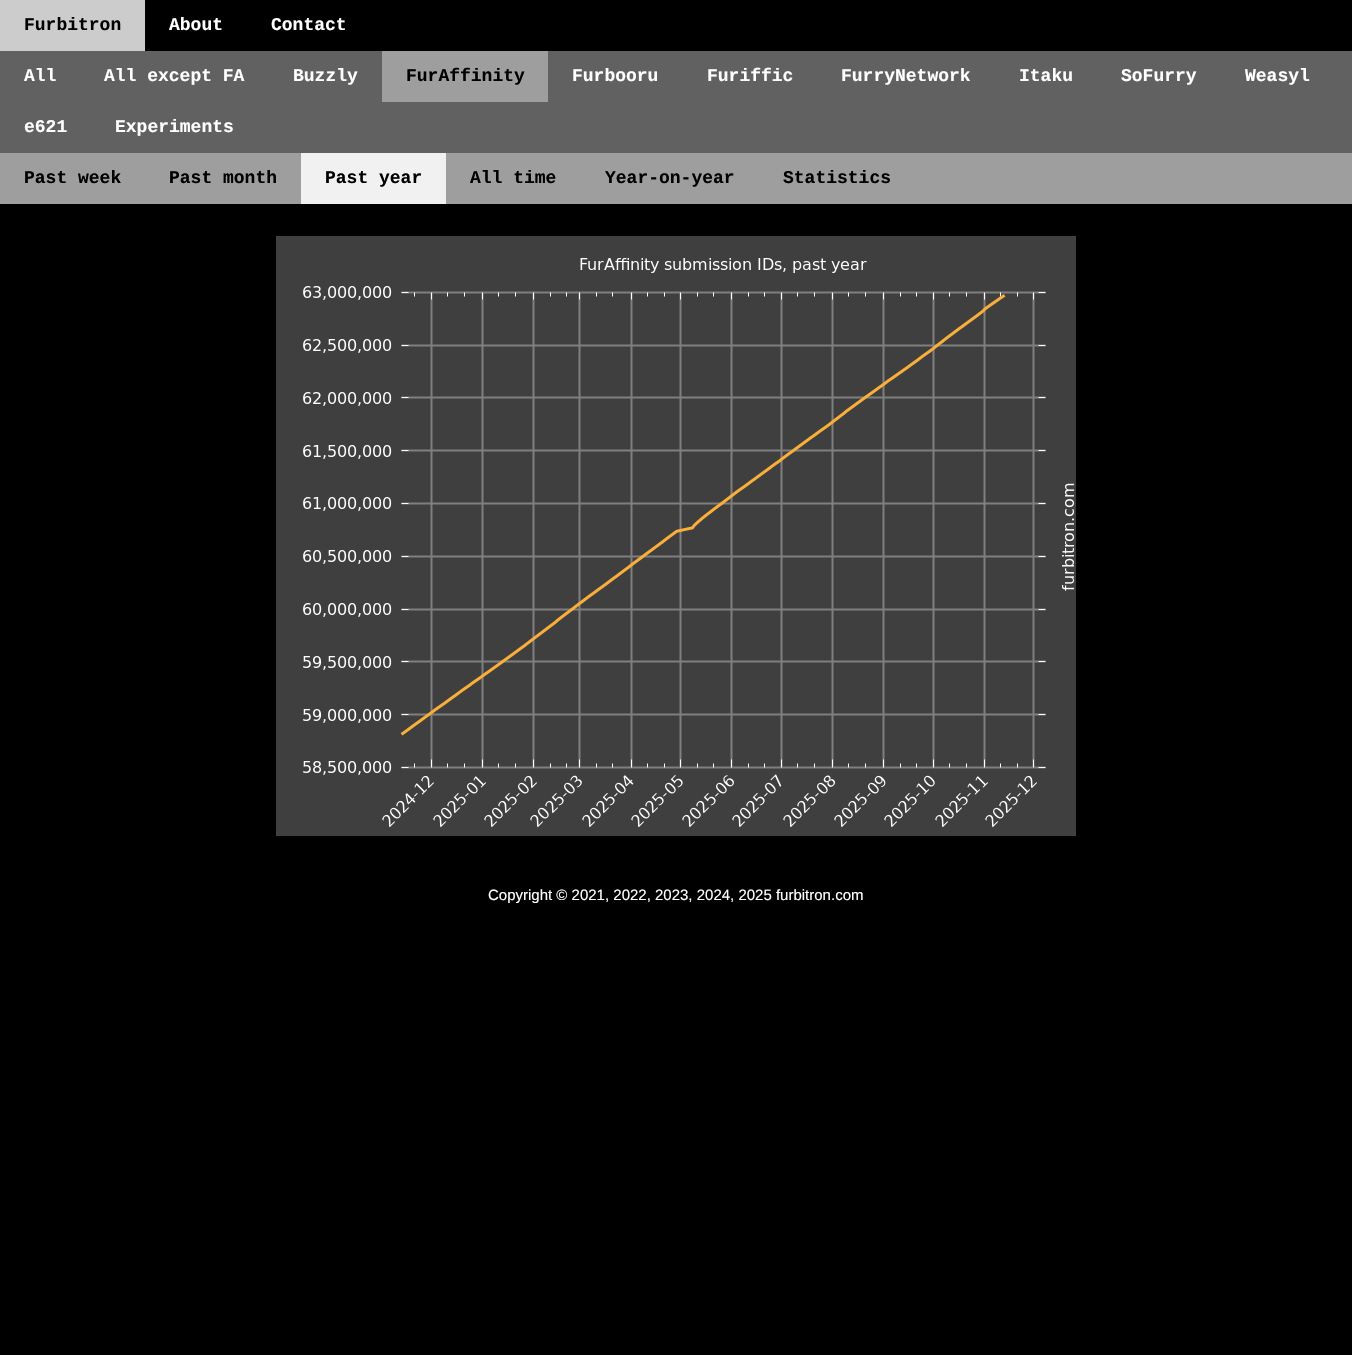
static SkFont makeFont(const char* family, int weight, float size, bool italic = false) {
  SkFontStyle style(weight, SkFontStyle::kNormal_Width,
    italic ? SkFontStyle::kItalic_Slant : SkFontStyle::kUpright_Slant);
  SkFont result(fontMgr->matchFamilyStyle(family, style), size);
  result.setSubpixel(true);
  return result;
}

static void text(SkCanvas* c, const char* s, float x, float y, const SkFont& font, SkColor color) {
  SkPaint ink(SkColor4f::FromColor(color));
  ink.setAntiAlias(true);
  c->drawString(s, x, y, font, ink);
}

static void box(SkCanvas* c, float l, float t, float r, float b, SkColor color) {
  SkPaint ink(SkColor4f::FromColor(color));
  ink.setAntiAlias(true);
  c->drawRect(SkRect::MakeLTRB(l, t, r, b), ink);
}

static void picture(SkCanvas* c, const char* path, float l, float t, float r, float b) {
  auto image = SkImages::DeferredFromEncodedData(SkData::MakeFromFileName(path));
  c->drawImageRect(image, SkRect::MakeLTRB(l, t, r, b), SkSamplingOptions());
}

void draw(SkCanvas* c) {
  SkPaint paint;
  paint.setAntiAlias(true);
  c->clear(0xff000000);
  box(c, 0, 0, 145, 51, 0xffcccccc);
  SkFont face1 = makeFont("Liberation Mono", 700, 18);
  text(c, "Furbitron", 24, 30, face1, 0xff000000);
  text(c, "About", 169, 30, face1, 0xffffffff);
  text(c, "Contact", 271, 30, face1, 0xffffffff);
  box(c, 0, 51, 1352, 153, 0xff616161);
  text(c, "All", 24, 81, face1, 0xffffffff);
  text(c, "All except FA", 104, 81, face1, 0xffffffff);
  text(c, "Buzzly", 293, 81, face1, 0xffffffff);
  box(c, 382, 51, 548, 102, 0xff9e9e9e);
  text(c, "FurAffinity", 406, 81, face1, 0xff000000);
  text(c, "Furbooru", 572, 81, face1, 0xffffffff);
  text(c, "Furiffic", 707, 81, face1, 0xffffffff);
  text(c, "FurryNetwork", 841, 81, face1, 0xffffffff);
  text(c, "Itaku", 1019, 81, face1, 0xffffffff);
  text(c, "SoFurry", 1121, 81, face1, 0xffffffff);
  text(c, "Weasyl", 1245, 81, face1, 0xffffffff);
  text(c, "e621", 24, 132, face1, 0xffffffff);
  text(c, "Experiments", 115, 132, face1, 0xffffffff);
  box(c, 0, 153, 1352, 204, 0xff9e9e9e);
  text(c, "Past week", 24, 183, face1, 0xff000000);
  text(c, "Past month", 169, 183, face1, 0xff000000);
  box(c, 301, 153, 446, 204, 0xfff1f1f1);
  text(c, "Past year", 325, 183, face1, 0xff000000);
  text(c, "All time", 470, 183, face1, 0xff000000);
  text(c, "Year-on-year", 605, 183, face1, 0xff000000);
  text(c, "Statistics", 783, 183, face1, 0xff000000);
  picture(c, "img_01.png", 276, 236, 1076, 836);
  SkFont face2 = makeFont("Liberation Sans", 400, 15);
  text(c, "Copyright © 2021, 2022, 2023, 2024, 2025 furbitron.com", 488, 900, face2, 0xffffffff);
}
